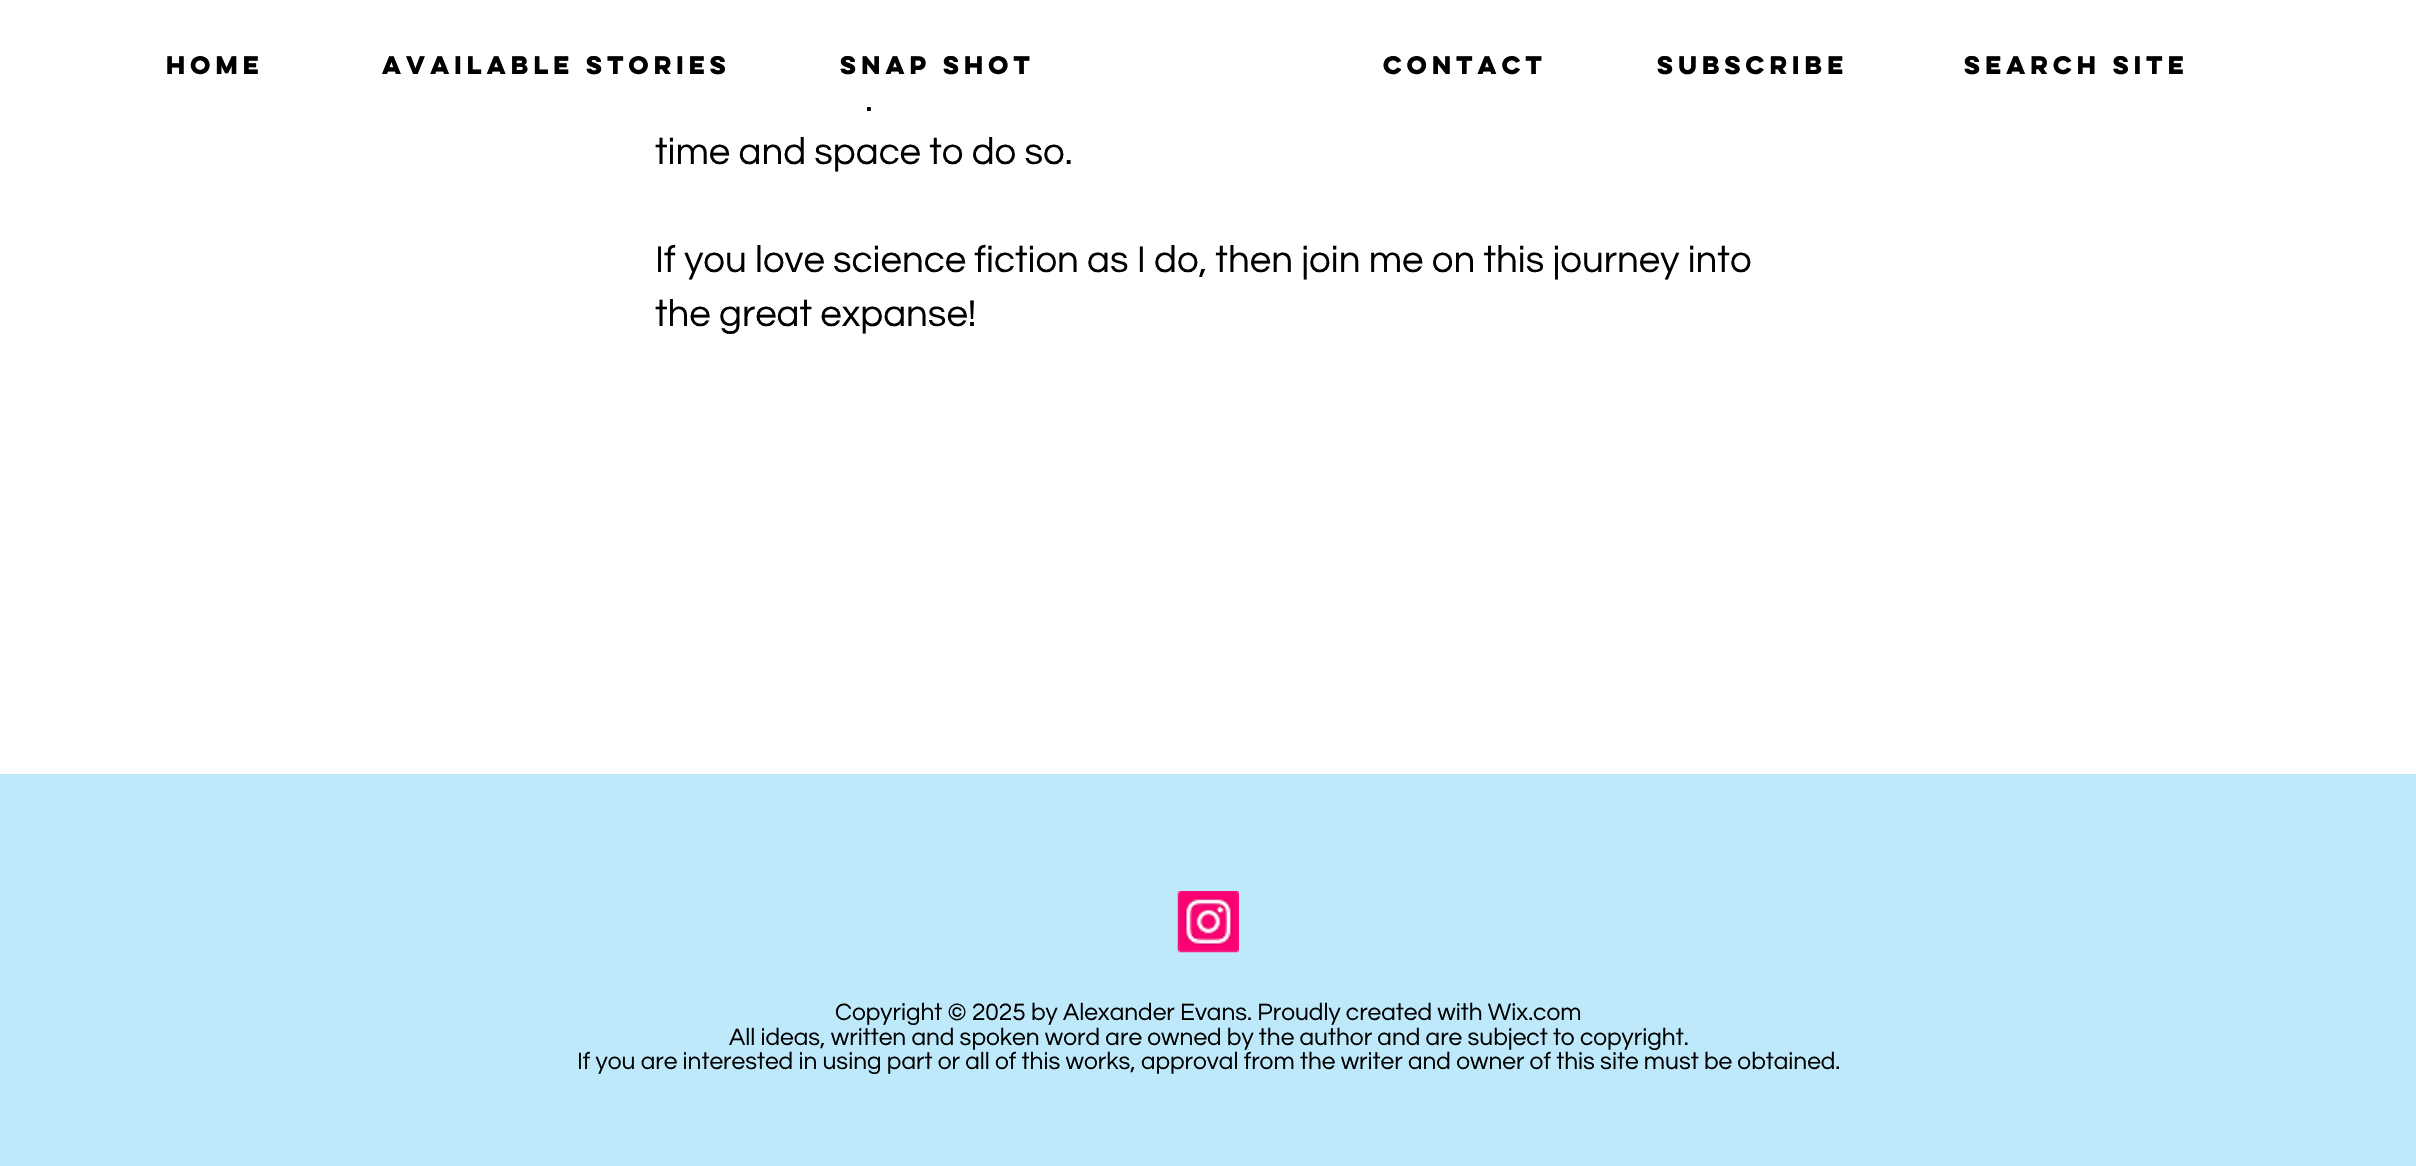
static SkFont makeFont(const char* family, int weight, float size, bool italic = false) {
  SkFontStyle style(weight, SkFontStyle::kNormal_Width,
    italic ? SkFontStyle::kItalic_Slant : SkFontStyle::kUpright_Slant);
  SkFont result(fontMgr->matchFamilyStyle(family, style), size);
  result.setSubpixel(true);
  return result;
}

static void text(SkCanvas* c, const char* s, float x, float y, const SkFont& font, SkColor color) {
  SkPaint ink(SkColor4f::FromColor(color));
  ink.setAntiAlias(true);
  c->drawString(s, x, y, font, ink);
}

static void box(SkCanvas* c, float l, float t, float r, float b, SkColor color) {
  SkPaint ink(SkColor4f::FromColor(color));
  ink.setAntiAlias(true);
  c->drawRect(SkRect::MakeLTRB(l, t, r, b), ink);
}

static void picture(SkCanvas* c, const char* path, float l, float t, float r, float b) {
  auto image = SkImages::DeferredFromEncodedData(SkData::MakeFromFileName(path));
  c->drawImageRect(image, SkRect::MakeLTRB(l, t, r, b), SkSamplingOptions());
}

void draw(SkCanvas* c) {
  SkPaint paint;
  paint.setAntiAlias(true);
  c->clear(0xffffffff);
  SkFont face1 = makeFont("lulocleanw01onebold", 700, 22.75f);
  text(c, "HOME", 166, 74, face1, 0xff000000);
  text(c, "AVAILABLE STORIES", 382, 74, face1, 0xff000000);
  text(c, "SNAP SHOT", 840, 74, face1, 0xff000000);
  text(c, "CONTACT", 1383, 74, face1, 0xff000000);
  text(c, "SUBSCRIBE", 1657, 74, face1, 0xff000000);
  text(c, "SEARCH SITE", 1964, 74, face1, 0xff000000);
  SkFont face2 = makeFont("Questrial", 400, 38.5f);
  text(c, ".", 865, 111, face2, 0xff000000);
  text(c, "time and space to do so.", 655, 164, face2, 0xff000000);
  text(c, "If you love science fiction as I do, then join me on this journey into", 655, 272, face2, 0xff000000);
  text(c, "the great expanse!", 655, 326, face2, 0xff000000);
  box(c, 0, 774, 2416, 1166, 0xffbde9fb);
  picture(c, "img_01.png", 1177, 891, 1239, 953);
  SkFont face3 = makeFont("Questrial", 400, 24.5f);
  text(c, "Copyright © 2025 by Alexander Evans. Proudly created with Wix.com", 835, 1020, face3, 0xff000000);
  text(c, "All ideas, written and spoken word are owned by the author and are subject to copyright.", 729, 1045, face3, 0xff000000);
  text(c, "If you are interested in using part or all of this works, approval from the writer and owner of this site must be obtained.", 577, 1069, face3, 0xff000000);
}
